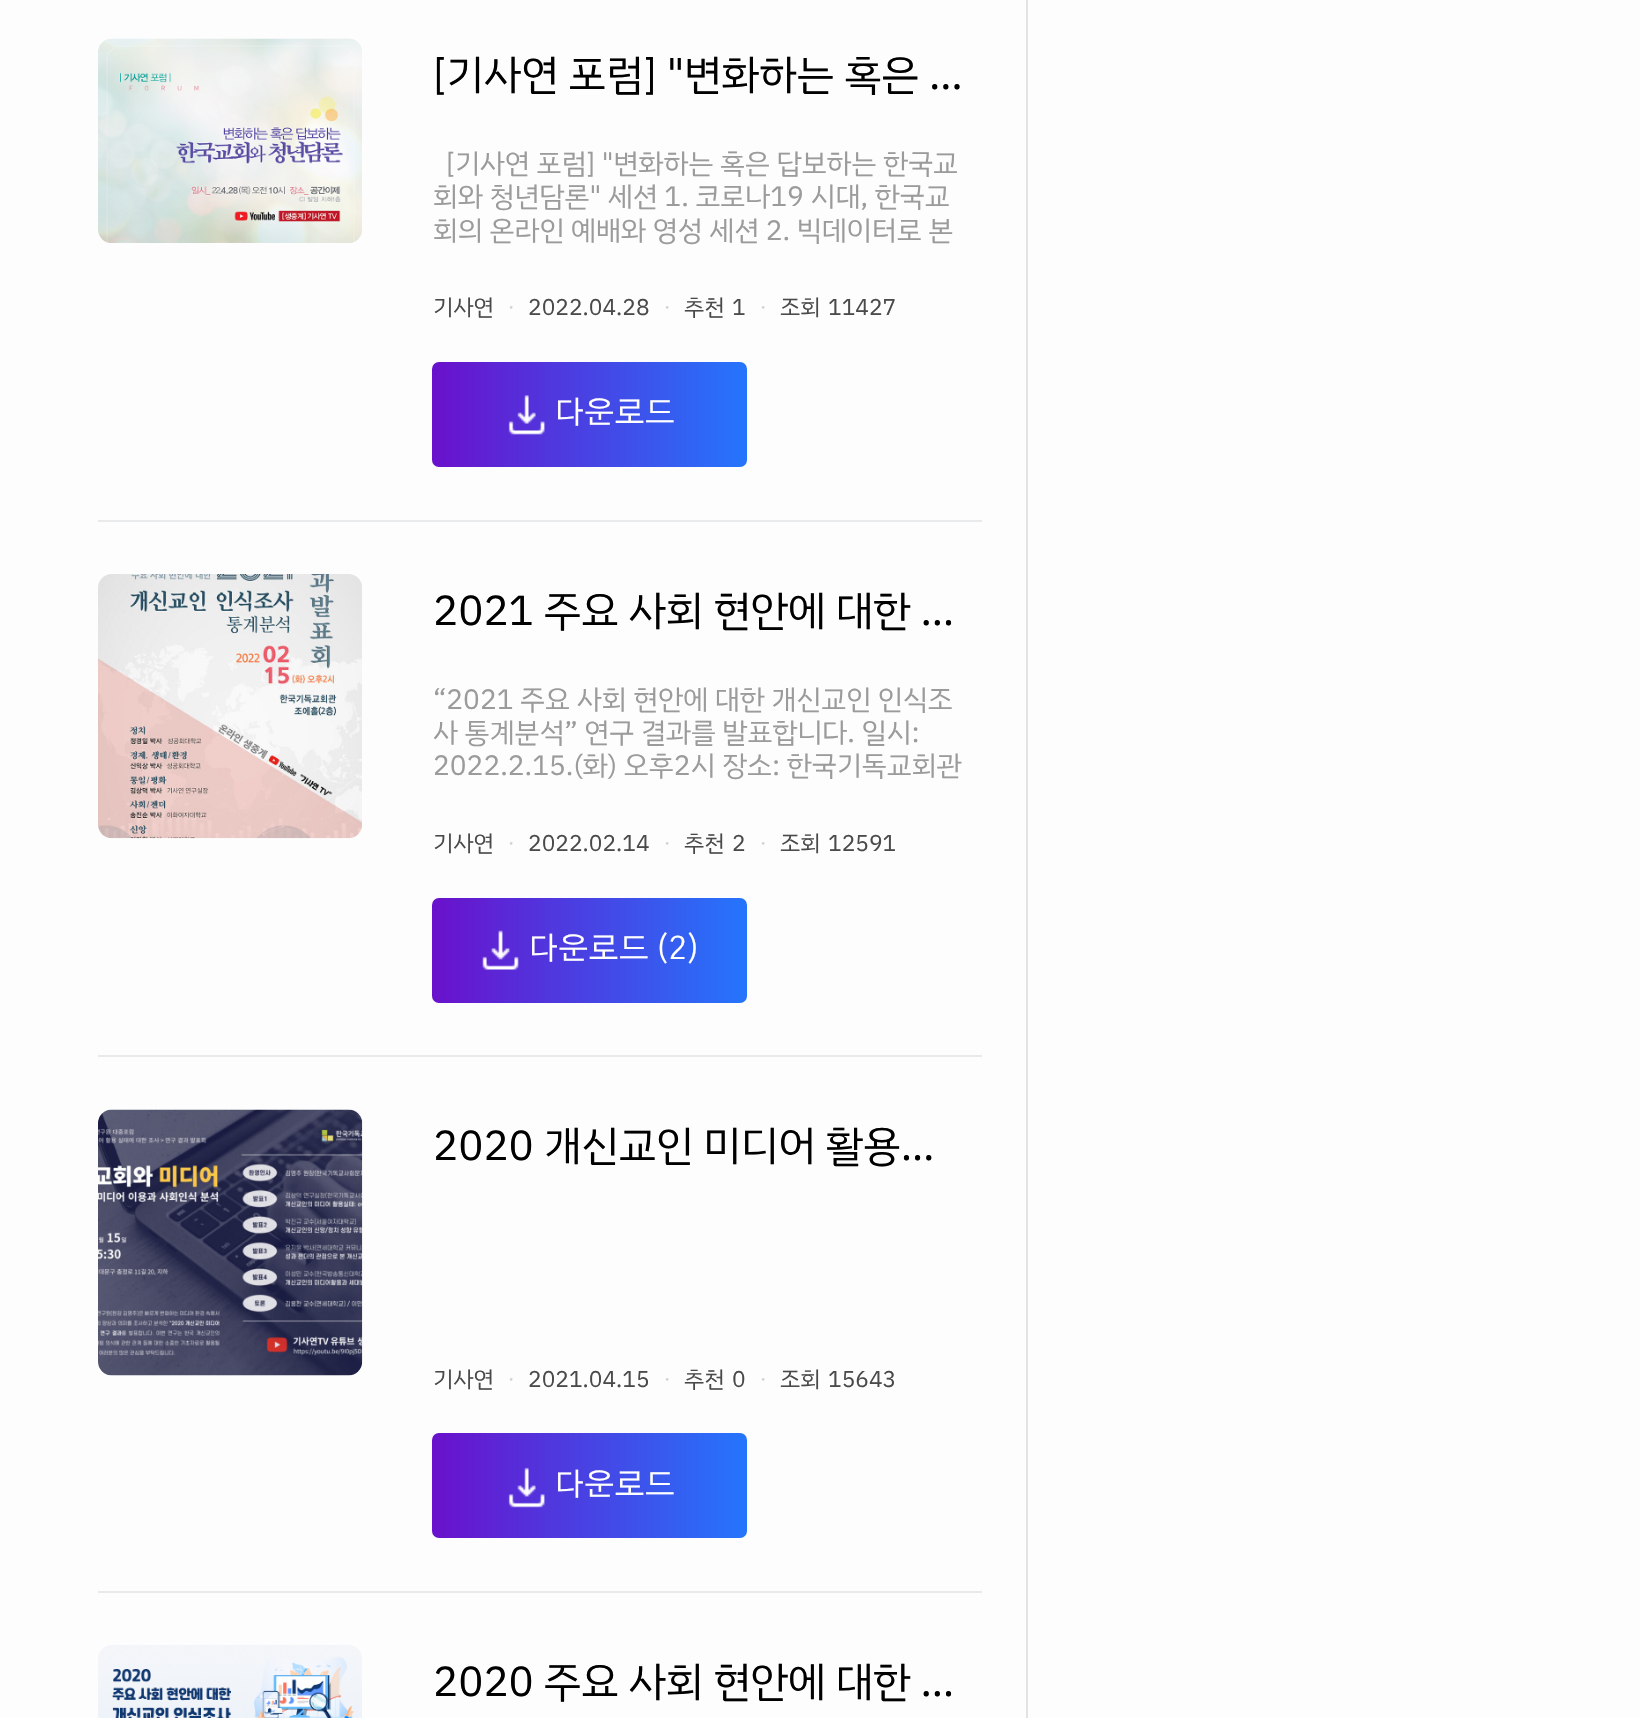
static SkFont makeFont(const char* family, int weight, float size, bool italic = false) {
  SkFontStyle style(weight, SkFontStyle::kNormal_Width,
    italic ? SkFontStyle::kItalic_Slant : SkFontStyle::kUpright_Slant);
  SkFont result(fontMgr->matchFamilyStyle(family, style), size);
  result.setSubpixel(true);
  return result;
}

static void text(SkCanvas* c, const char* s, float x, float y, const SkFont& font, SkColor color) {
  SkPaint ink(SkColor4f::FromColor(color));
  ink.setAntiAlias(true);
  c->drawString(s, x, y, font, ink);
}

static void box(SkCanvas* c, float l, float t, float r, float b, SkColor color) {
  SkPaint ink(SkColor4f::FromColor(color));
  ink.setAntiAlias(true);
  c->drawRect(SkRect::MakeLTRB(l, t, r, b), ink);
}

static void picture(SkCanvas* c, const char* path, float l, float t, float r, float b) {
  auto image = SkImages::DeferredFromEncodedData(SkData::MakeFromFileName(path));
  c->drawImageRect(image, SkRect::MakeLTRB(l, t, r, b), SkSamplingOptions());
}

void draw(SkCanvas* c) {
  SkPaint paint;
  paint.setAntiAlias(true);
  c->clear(0xfffdfdfd);
  box(c, 1026, 0, 1028, 1718, 0xffe3e3e3);
  picture(c, "img_01.png", 98, 38, 362, 243);
  SkFont face1 = makeFont("IBM Plex Sans KR", 400, 42);
  text(c, "[기사연 포럼] \"변화하는 혹은 …", 433, 89, face1, 0xff000000);
  SkFont face2 = makeFont("IBM Plex Sans KR", 400, 28);
  text(c, "[기사연 포럼] \"변화하는 혹은 답보하는 한국교", 446, 173, face2, 0xff9b9b9b);
  text(c, "회와 청년담론\" 세션 1. 코로나19 시대, 한국교", 433, 206, face2, 0xff9b9b9b);
  text(c, "회의 온라인 예배와 영성 세션 2. 빅데이터로 본", 433, 240, face2, 0xff9b9b9b);
  SkFont face3 = makeFont("IBM Plex Sans KR", 400, 22.75f);
  text(c, "기사연", 433, 315, face3, 0xff4a4a4a);
  text(c, "ㆍ", 501, 315, face3, 0xffd2d2d2);
  text(c, "2022.04.28", 528, 315, face3, 0xff4a4a4a);
  text(c, "ㆍ", 657, 315, face3, 0xffd2d2d2);
  text(c, "추천", 684, 315, face3, 0xff4a4a4a);
  text(c, "1", 732, 315, face3, 0xff4a4a4a);
  text(c, "ㆍ", 753, 315, face3, 0xffd2d2d2);
  text(c, "조회", 780, 315, face3, 0xff4a4a4a);
  text(c, "11427", 828, 315, face3, 0xff4a4a4a);
  {
    const SkColor colors[] = {0xff6a11cb, 0xff2575fc};
    const float stops[] = {0, 1};
    const SkPoint ends[] = {{432, 415}, {747, 415}};
    paint.setShader(SkGradientShader::MakeLinear(ends, colors, stops, 2, SkTileMode::kClamp));
    paint.setAlpha(255);
  }
  c->drawRoundRect(SkRect::MakeLTRB(432, 362, 747, 467), 7, 7, paint);
  picture(c, "img_02.png", 508, 395, 545, 435);
  SkFont face4 = makeFont("Gothic A1", 400, 31.5f);
  text(c, "다운로드", 554, 423, face4, 0xffffffff);
  box(c, 98, 520, 982, 522, 0xffe8eaec);
  picture(c, "img_03.png", 98, 574, 362, 839);
  text(c, "2021 주요 사회 현안에 대한 …", 433, 625, face1, 0xff000000);
  text(c, "“2021 주요 사회 현안에 대한 개신교인 인식조", 433, 709, face2, 0xff9b9b9b);
  text(c, "사 통계분석” 연구 결과를 발표합니다. 일시:", 433, 742, face2, 0xff9b9b9b);
  text(c, "2022.2.15.(화) 오후2시 장소: 한국기독교회관", 433, 775, face2, 0xff9b9b9b);
  text(c, "기사연", 433, 851, face3, 0xff4a4a4a);
  text(c, "ㆍ", 501, 851, face3, 0xffd2d2d2);
  text(c, "2022.02.14", 528, 851, face3, 0xff4a4a4a);
  text(c, "ㆍ", 657, 851, face3, 0xffd2d2d2);
  text(c, "추천", 684, 851, face3, 0xff4a4a4a);
  text(c, "2", 732, 851, face3, 0xff4a4a4a);
  text(c, "ㆍ", 753, 851, face3, 0xffd2d2d2);
  text(c, "조회", 780, 851, face3, 0xff4a4a4a);
  text(c, "12591", 828, 851, face3, 0xff4a4a4a);
  {
    const SkColor colors[] = {0xff6a11cb, 0xff2575fc};
    const float stops[] = {0, 1};
    const SkPoint ends[] = {{432, 950}, {747, 950}};
    paint.setShader(SkGradientShader::MakeLinear(ends, colors, stops, 2, SkTileMode::kClamp));
    paint.setAlpha(255);
  }
  c->drawRoundRect(SkRect::MakeLTRB(432, 898, 747, 1003), 7, 7, paint);
  picture(c, "img_04.png", 482, 930, 519, 970);
  text(c, "다운로드", 528, 959, face4, 0xffffffff);
  text(c, "(2)", 655, 959, face4, 0xffffffff);
  box(c, 98, 1055, 982, 1057, 0xffe8eaec);
  picture(c, "img_05.png", 98, 1109, 363, 1376);
  text(c, "2020 개신교인 미디어 활용…", 433, 1160, face1, 0xff000000);
  text(c, "기사연", 433, 1387, face3, 0xff4a4a4a);
  text(c, "ㆍ", 501, 1387, face3, 0xffd2d2d2);
  text(c, "2021.04.15", 528, 1387, face3, 0xff4a4a4a);
  text(c, "ㆍ", 657, 1387, face3, 0xffd2d2d2);
  text(c, "추천", 684, 1387, face3, 0xff4a4a4a);
  text(c, "0", 732, 1387, face3, 0xff4a4a4a);
  text(c, "ㆍ", 753, 1387, face3, 0xffd2d2d2);
  text(c, "조회", 780, 1387, face3, 0xff4a4a4a);
  text(c, "15643", 828, 1387, face3, 0xff4a4a4a);
  {
    const SkColor colors[] = {0xff6a11cb, 0xff2575fc};
    const float stops[] = {0, 1};
    const SkPoint ends[] = {{432, 1486}, {747, 1486}};
    paint.setShader(SkGradientShader::MakeLinear(ends, colors, stops, 2, SkTileMode::kClamp));
    paint.setAlpha(255);
  }
  c->drawRoundRect(SkRect::MakeLTRB(432, 1433, 747, 1538), 7, 7, paint);
  picture(c, "img_06.png", 508, 1467, 545, 1508);
  text(c, "다운로드", 554, 1495, face4, 0xffffffff);
  box(c, 98, 1591, 982, 1593, 0xffe8eaec);
  picture(c, "img_07.png", 98, 1645, 362, 1718);
  text(c, "2020 주요 사회 현안에 대한 …", 433, 1696, face1, 0xff000000);
}
